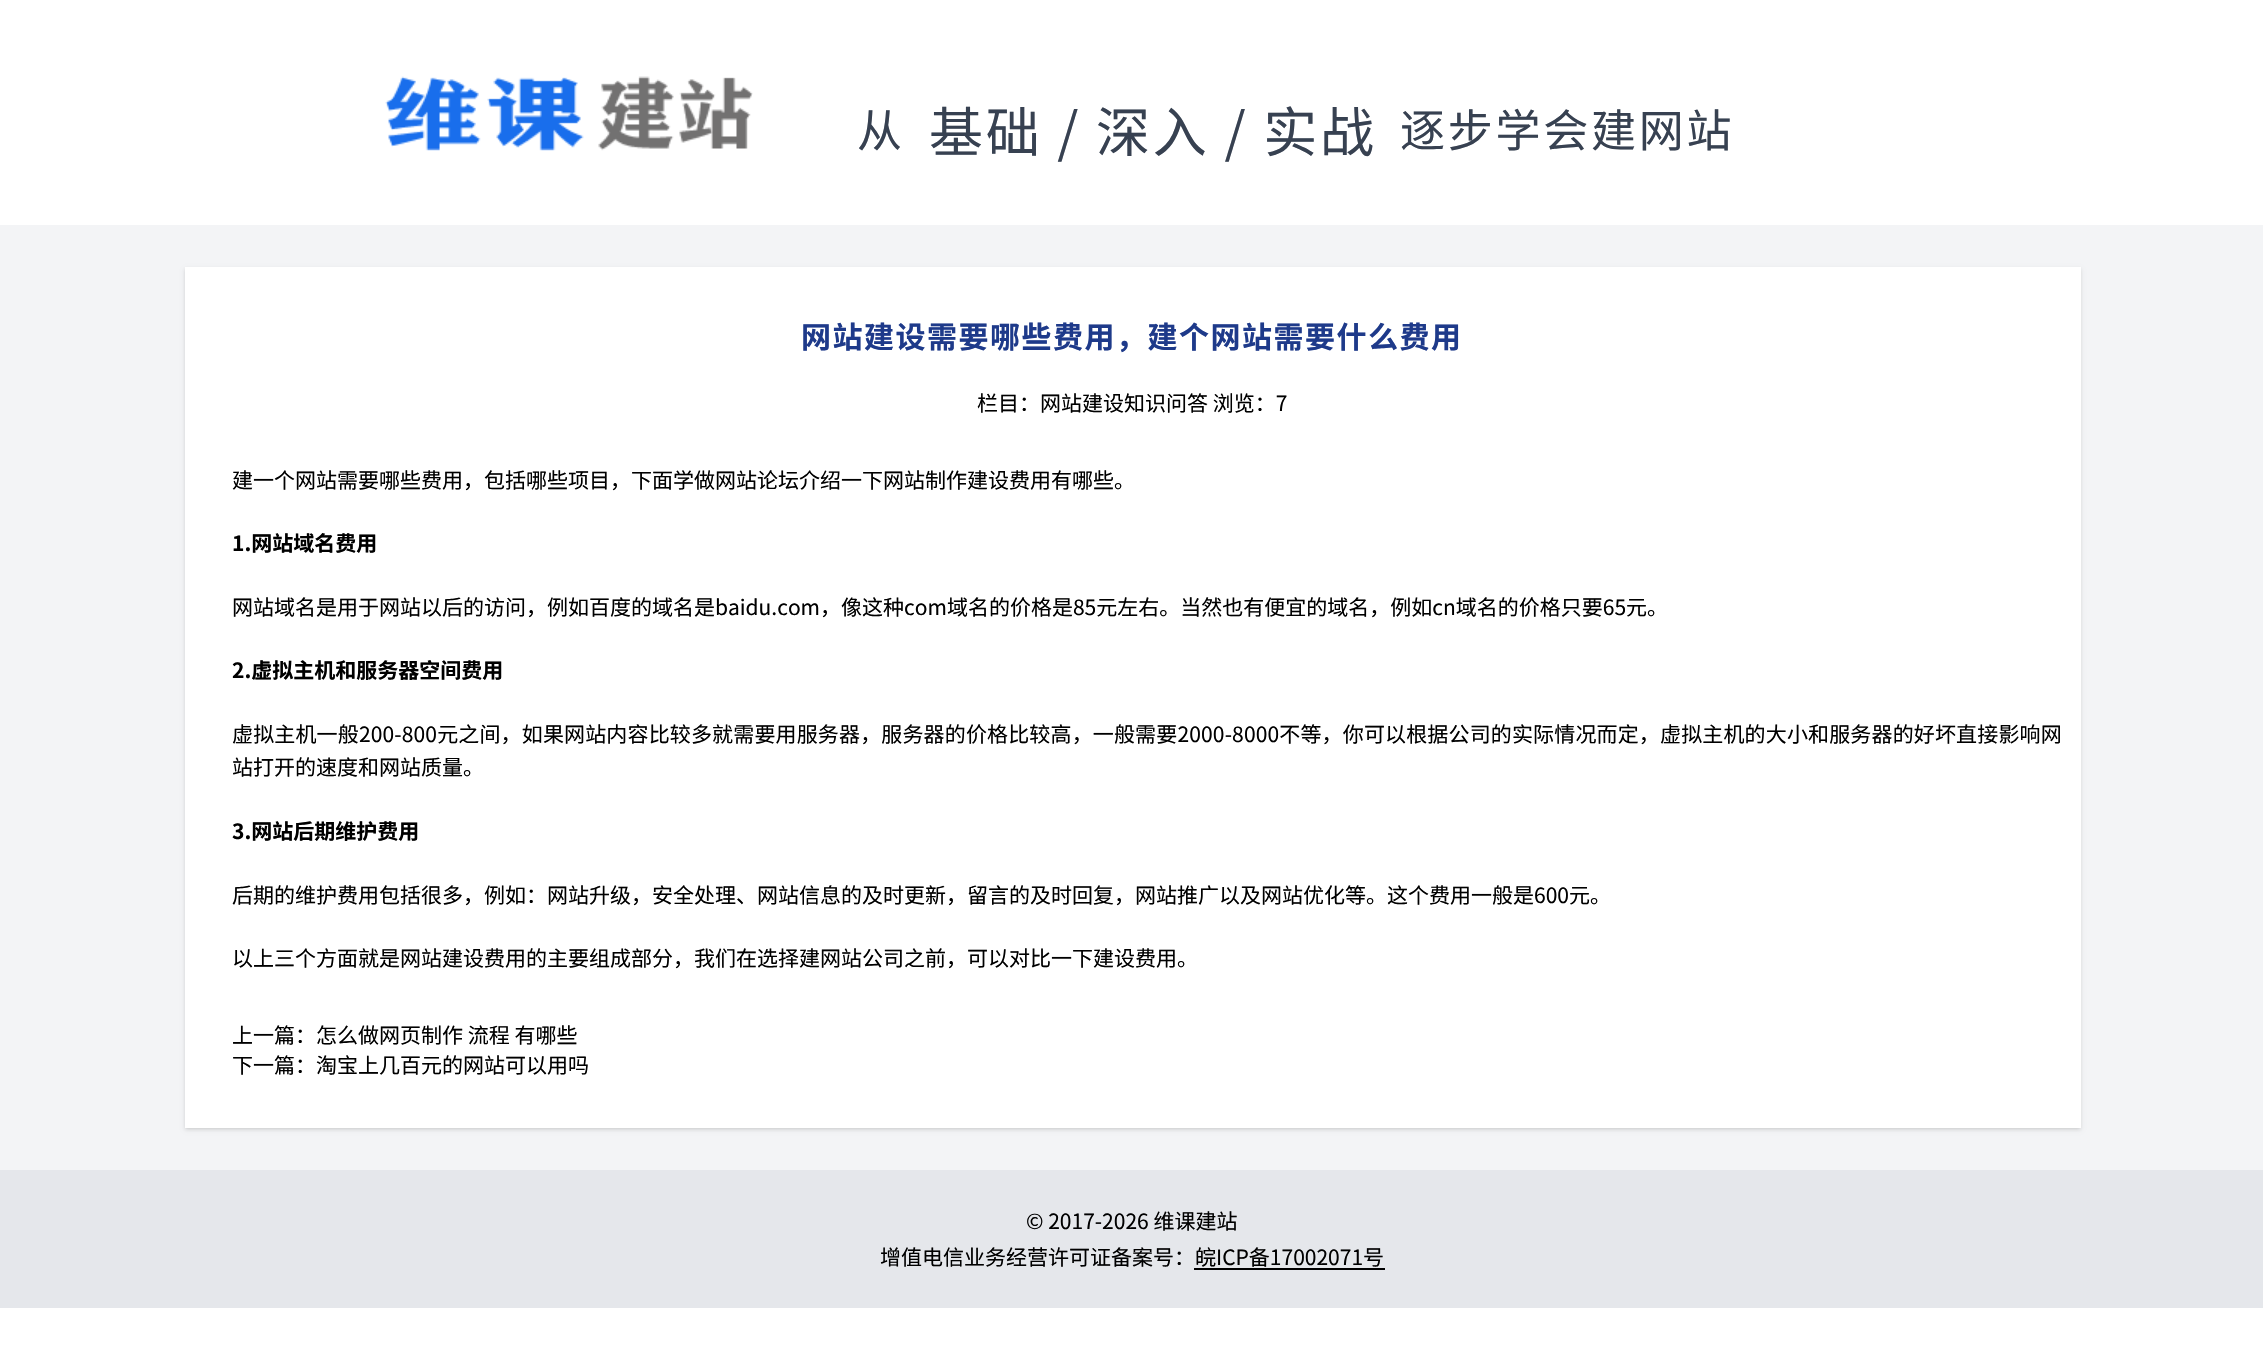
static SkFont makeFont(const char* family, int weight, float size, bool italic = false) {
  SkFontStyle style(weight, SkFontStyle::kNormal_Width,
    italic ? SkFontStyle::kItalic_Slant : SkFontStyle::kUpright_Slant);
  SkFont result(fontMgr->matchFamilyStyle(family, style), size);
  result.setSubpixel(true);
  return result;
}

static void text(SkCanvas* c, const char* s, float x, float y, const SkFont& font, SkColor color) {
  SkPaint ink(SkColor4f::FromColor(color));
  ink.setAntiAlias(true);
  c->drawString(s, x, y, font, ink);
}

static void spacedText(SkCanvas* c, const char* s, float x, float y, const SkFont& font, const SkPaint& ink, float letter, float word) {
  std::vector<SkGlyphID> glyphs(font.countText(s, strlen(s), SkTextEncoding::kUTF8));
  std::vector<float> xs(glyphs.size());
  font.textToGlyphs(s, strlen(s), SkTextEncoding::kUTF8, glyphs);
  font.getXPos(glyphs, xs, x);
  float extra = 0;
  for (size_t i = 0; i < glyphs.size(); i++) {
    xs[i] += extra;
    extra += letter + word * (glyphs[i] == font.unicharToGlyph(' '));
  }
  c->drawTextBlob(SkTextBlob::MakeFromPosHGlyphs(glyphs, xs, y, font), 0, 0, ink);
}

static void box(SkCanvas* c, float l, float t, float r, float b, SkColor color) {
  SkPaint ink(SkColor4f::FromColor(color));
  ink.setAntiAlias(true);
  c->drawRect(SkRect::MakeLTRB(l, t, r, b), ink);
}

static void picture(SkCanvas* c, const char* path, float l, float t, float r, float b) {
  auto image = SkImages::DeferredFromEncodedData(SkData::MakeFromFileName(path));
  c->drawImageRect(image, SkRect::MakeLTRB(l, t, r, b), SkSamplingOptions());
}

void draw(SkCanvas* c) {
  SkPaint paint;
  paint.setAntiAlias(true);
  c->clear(0xffffffff);
  picture(c, "img_01.png", 385, 76, 753, 151);
  SkFont face1 = makeFont("Noto Sans CJK SC", 400, 45);
  paint.setColor(0xff374151);
  spacedText(c, "从", 857, 147, face1, paint, 2.75f, 0);
  SkFont face2 = makeFont("Noto Sans CJK SC", 400, 54);
  spacedText(c, "基础 / 深入 / 实战", 929, 152, face2, paint, 2.75f, 0);
  spacedText(c, "逐步学会建网站", 1400, 147, face1, paint, 2.75f, 0);
  box(c, 0, 225, 2263, 1170, 0xfff3f4f6);
  paint.setColor(0x1a000000);
  paint.setMaskFilter(SkMaskFilter::MakeBlur(kNormal_SkBlurStyle, 1.5f));
  c->drawRect(SkRect::MakeLTRB(186, 270, 2079, 1128), paint);
  paint.setMaskFilter(nullptr);
  paint.setMaskFilter(SkMaskFilter::MakeBlur(kNormal_SkBlurStyle, 2));
  c->drawRect(SkRect::MakeLTRB(185, 269, 2081, 1130), paint);
  paint.setMaskFilter(nullptr);
  box(c, 185, 267, 2081, 1128, 0xffffffff);
  SkFont face3 = makeFont("Noto Sans CJK SC", 700, 30);
  paint.setColor(0xff1e3a8a);
  spacedText(c, "网站建设需要哪些费用，建个网站需要什么费用", 801, 348, face3, paint, 1.5f, 0);
  SkFont face4 = makeFont("Noto Sans CJK SC", 400, 21);
  text(c, "栏目：网站建设知识问答 浏览：7", 977, 411, face4, 0xff000000);
  text(c, "建一个网站需要哪些费用，包括哪些项目，下面学做网站论坛介绍一下网站制作建设费用有哪些。", 232, 488, face4, 0xff000000);
  SkFont face5 = makeFont("Noto Sans CJK SC", 700, 21);
  text(c, "1.网站域名费用", 232, 551, face5, 0xff000000);
  text(c, "网站域名是用于网站以后的访问，例如百度的域名是baidu.com，像这种com域名的价格是85元左右。当然也有便宜的域名，例如cn域名的价格只要65元。", 232, 615, face4, 0xff000000);
  text(c, "2.虚拟主机和服务器空间费用", 232, 678, face5, 0xff000000);
  paint.setColor(0xff000000);
  spacedText(c, "虚拟主机一般200-800元之间，如果网站内容比较多就需要用服务器，服务器的价格比较高，一般需要2000-8000不等，你可以根据公司的实际情况而定，虚拟主机的大小和服务器的好坏直接影响网", 232, 742, face4, paint, 0.15f, 0);
  text(c, "站打开的速度和网站质量。", 232, 775, face4, 0xff000000);
  text(c, "3.网站后期维护费用", 232, 839, face5, 0xff000000);
  text(c, "后期的维护费用包括很多，例如：网站升级，安全处理、网站信息的及时更新，留言的及时回复，网站推广以及网站优化等。这个费用一般是600元。", 232, 903, face4, 0xff000000);
  text(c, "以上三个方面就是网站建设费用的主要组成部分，我们在选择建网站公司之前，可以对比一下建设费用。", 232, 966, face4, 0xff000000);
  text(c, "上一篇：怎么做网页制作 流程 有哪些", 232, 1043, face4, 0xff000000);
  text(c, "下一篇：淘宝上几百元的网站可以用吗", 232, 1073, face4, 0xff000000);
  box(c, 0, 1170, 2263, 1308, 0xffe5e7eb);
  text(c, "© 2017-2026 维课建站", 1026, 1229, face4, 0xff000000);
  text(c, "增值电信业务经营许可证备案号：皖ICP备17002071号", 880, 1265, face4, 0xff000000);
  box(c, 1194, 1268, 1385, 1270, 0xff000000);
}
